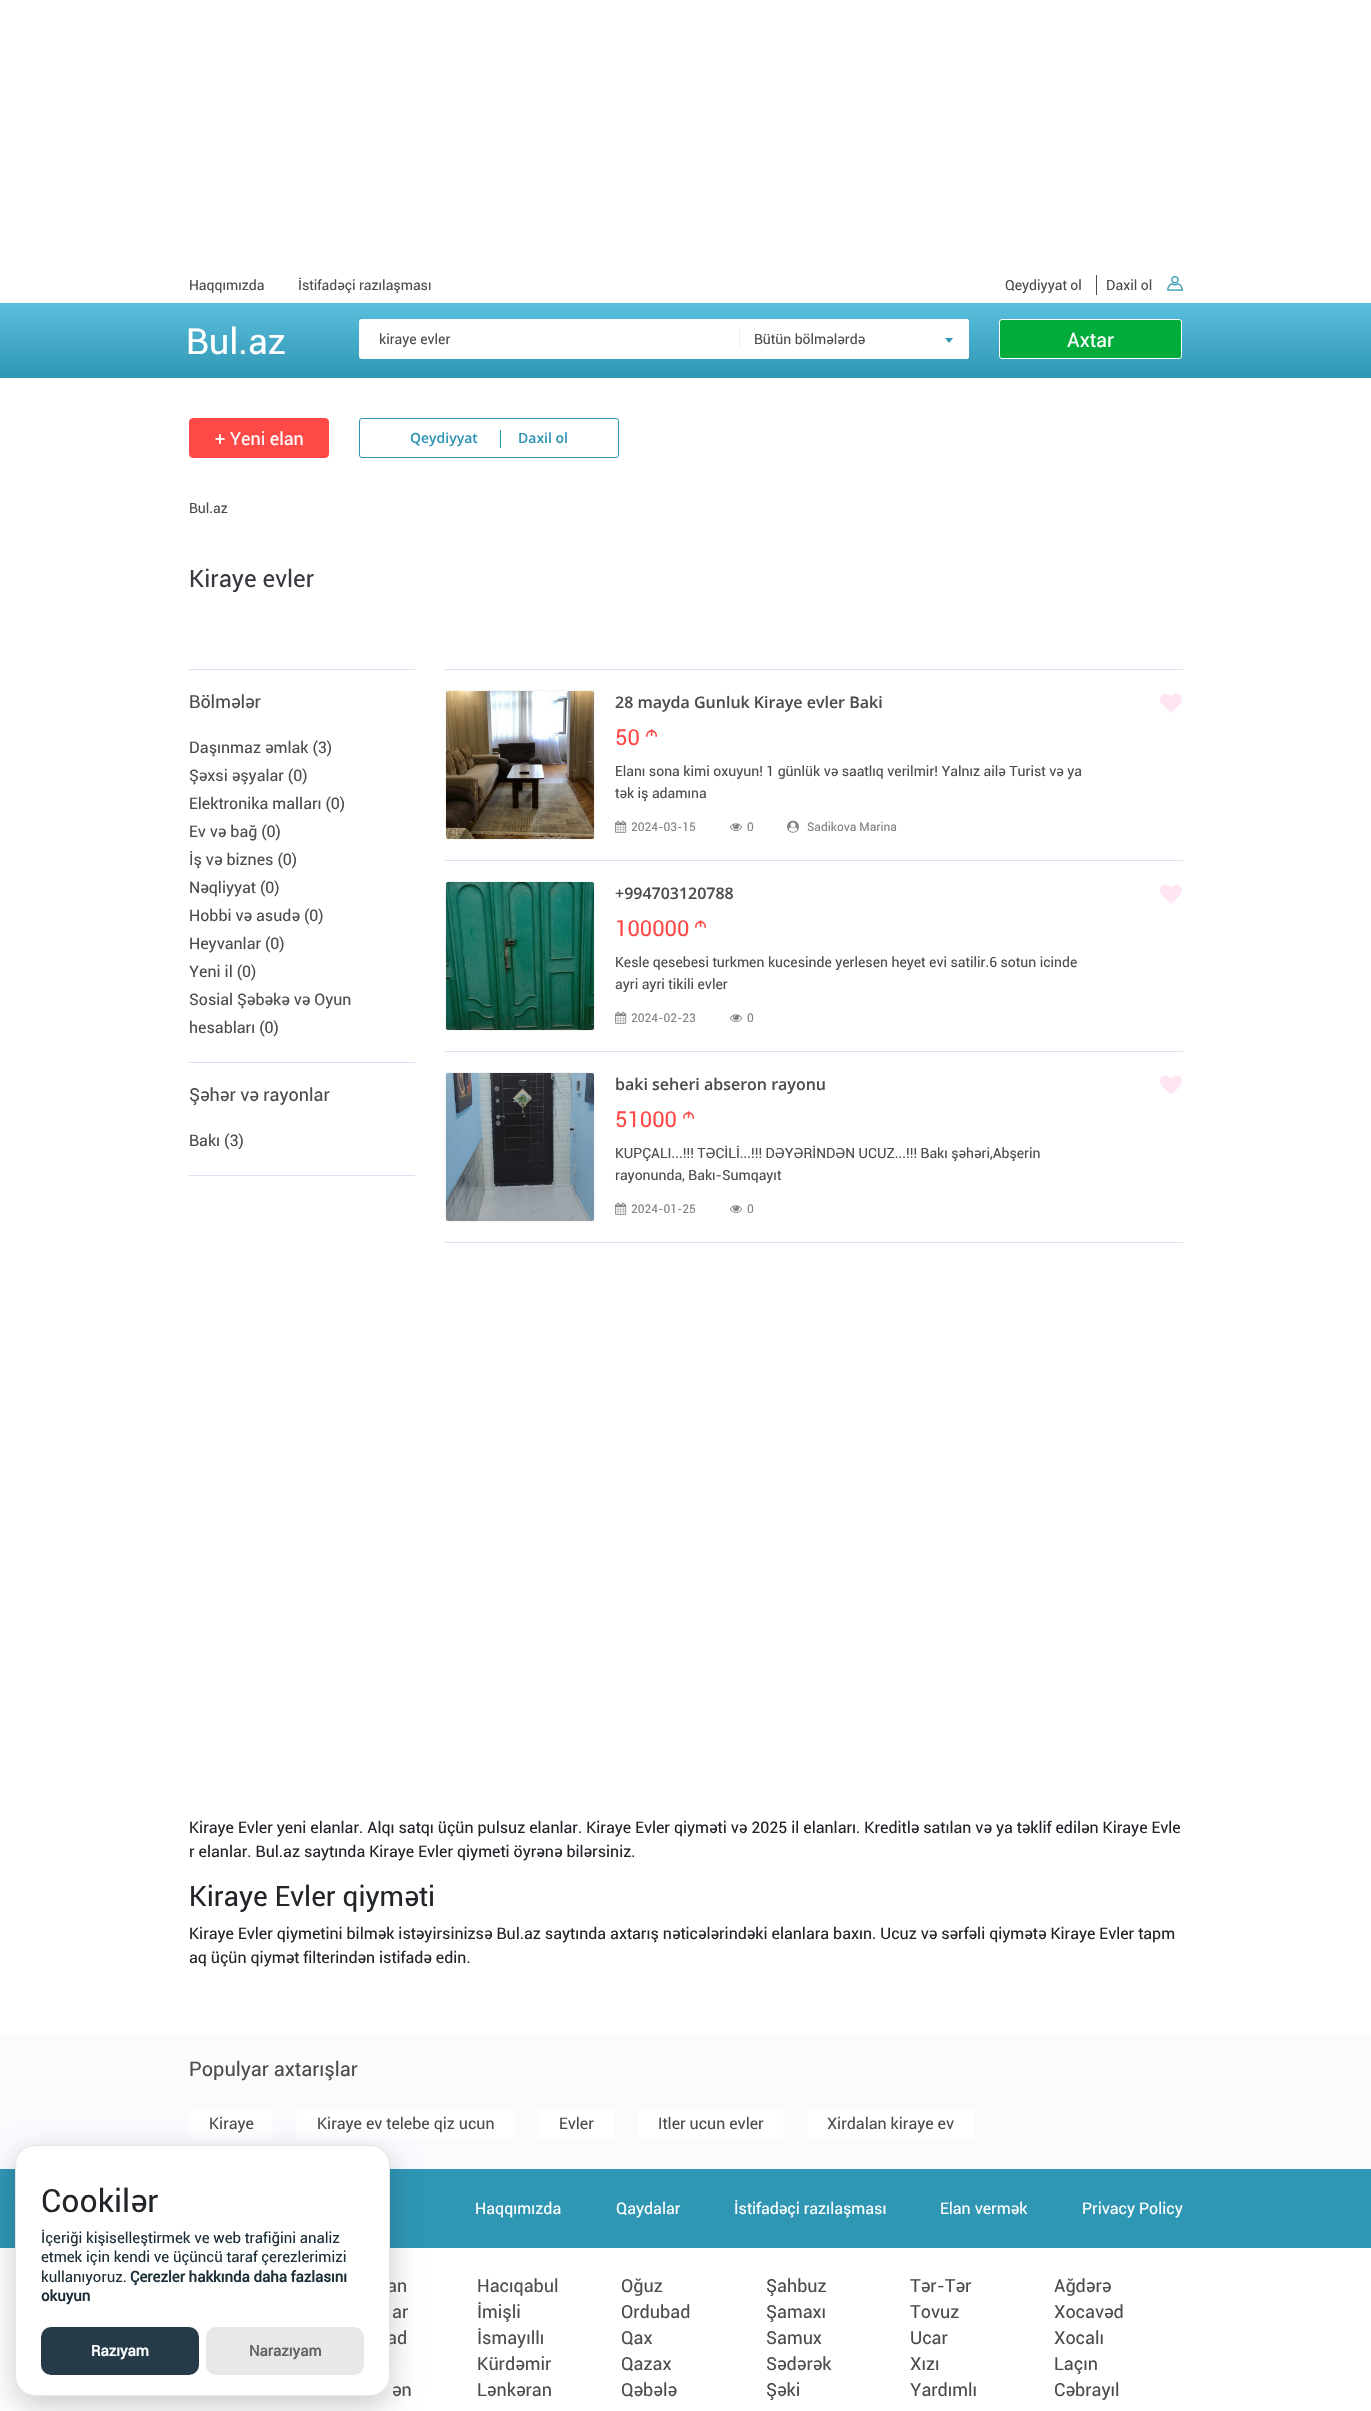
static SkFont makeFont(const char* family, int weight, float size, bool italic = false) {
  SkFontStyle style(weight, SkFontStyle::kNormal_Width,
    italic ? SkFontStyle::kItalic_Slant : SkFontStyle::kUpright_Slant);
  SkFont result(fontMgr->matchFamilyStyle(family, style), size);
  result.setSubpixel(true);
  return result;
}

static void text(SkCanvas* c, const char* s, float x, float y, const SkFont& font, SkColor color) {
  SkPaint ink(SkColor4f::FromColor(color));
  ink.setAntiAlias(true);
  c->drawString(s, x, y, font, ink);
}

static void box(SkCanvas* c, float l, float t, float r, float b, SkColor color) {
  SkPaint ink(SkColor4f::FromColor(color));
  ink.setAntiAlias(true);
  c->drawRect(SkRect::MakeLTRB(l, t, r, b), ink);
}

static void roundBox(SkCanvas* c, float l, float t, float r, float b, float radius, SkColor color) {
  SkPaint ink(SkColor4f::FromColor(color));
  ink.setAntiAlias(true);
  c->drawRoundRect(SkRect::MakeLTRB(l, t, r, b), radius, radius, ink);
}

static void picture(SkCanvas* c, const char* path, float l, float t, float r, float b) {
  auto image = SkImages::DeferredFromEncodedData(SkData::MakeFromFileName(path));
  c->drawImageRect(image, SkRect::MakeLTRB(l, t, r, b), SkSamplingOptions());
}

void draw(SkCanvas* c) {
  SkPaint paint;
  paint.setAntiAlias(true);
  c->clear(0xffffffff);
  SkFont face1 = makeFont("Roboto", 400, 14);
  text(c, "Haqqımızda", 189, 290, face1, 0xff4c4c4c);
  text(c, "İstifadəçi razılaşması", 298, 290, face1, 0xff4c4c4c);
  text(c, "Qeydiyyat ol", 1005, 290, face1, 0xff4c4c4c);
  box(c, 1096, 275, 1097, 295, 0xff4c4c4c);
  text(c, "Daxil ol", 1106, 290, face1, 0xff4c4c4c);
  picture(c, "img_01.png", 1167, 276, 1183, 291);
  {
    const SkColor colors[] = {0xff5bc0de, 0xff2f96b4};
    const float stops[] = {0, 1};
    const SkPoint ends[] = {{686, 303}, {686, 378}};
    paint.setShader(SkGradientShader::MakeLinear(ends, colors, stops, 2, SkTileMode::kClamp));
    paint.setAlpha(255);
  }
  c->drawRect(SkRect::MakeLTRB(0, 303, 1371, 378), paint);
  SkFont face2 = makeFont("Roboto", 400, 36);
  text(c, "Bul.az", 186, 354, face2, 0xffffffff);
  roundBox(c, 359, 319, 969, 359, 3, 0xffffffff);
  text(c, "kiraye evler", 379, 344, face1, 0xff4c4c4c);
  roundBox(c, 739, 319, 969, 359, 3, 0xffffffff);
  box(c, 739, 329, 740, 349, 0xffefeef2);
  text(c, "Bütün bölmələrdə", 754, 344, face1, 0xff4c4c4c);
  paint.setShader(nullptr);
  paint.setColor(0xff2f96b4);
  c->drawPath(SkPathBuilder().moveTo(945, 338).lineTo(953, 338).lineTo(949, 343).close().detach(), paint);
  paint.setColor(0xff01ac3a);
  c->drawRoundRect(SkRect::MakeLTRB(999.5f, 319.5f, 1181.5f, 358.5f), 2.5f, 2.5f, paint);
  paint.setStyle(SkPaint::kStroke_Style);
  paint.setStrokeWidth(1);
  paint.setColor(0xffffffff);
  c->drawRoundRect(SkRect::MakeLTRB(999.5f, 319.5f, 1181.5f, 358.5f), 2.5f, 2.5f, paint);
  SkFont face3 = makeFont("Roboto", 400, 20);
  text(c, "Axtar", 1067, 347, face3, 0xffffffff);
  paint.setStyle(SkPaint::kFill_Style);
  paint.setColor(0xffff4947);
  c->drawRoundRect(SkRect::MakeLTRB(189.5f, 418.5f, 328.5f, 457.5f), 3.5f, 3.5f, paint);
  paint.setStyle(SkPaint::kStroke_Style);
  c->drawRoundRect(SkRect::MakeLTRB(189.5f, 418.5f, 328.5f, 457.5f), 3.5f, 3.5f, paint);
  SkFont face4 = makeFont("Roboto", 400, 18);
  text(c, "+ Yeni elan", 215, 445, face4, 0xffffffff);
  paint.setColor(0xff2f96b4);
  c->drawRoundRect(SkRect::MakeLTRB(359.5f, 418.5f, 618.5f, 457.5f), 2.5f, 2.5f, paint);
  SkFont face5 = makeFont("Open Sans", 600, 14);
  text(c, "Qeydiyyat", 410, 443, face5, 0xff2f96b4);
  box(c, 500, 430, 501, 448, 0xff2f96b4);
  text(c, "Daxil ol", 518, 443, face5, 0xff2f96b4);
  text(c, "Bul.az", 189, 513, face1, 0xff4c4c4c);
  SkFont face6 = makeFont("Roboto", 400, 24);
  text(c, "Kiraye evler", 189, 587, face6, 0xff373a41);
  box(c, 189, 669, 415, 670, 0xffdbe1f3);
  text(c, "Bölmələr", 189, 708, face4, 0xff4c4c4c);
  SkFont face7 = makeFont("Roboto", 400, 16);
  text(c, "Daşınmaz əmlak (3)", 189, 753, face7, 0xff4c4c4c);
  text(c, "Şəxsi əşyalar (0)", 189, 781, face7, 0xff4c4c4c);
  text(c, "Elektronika malları (0)", 189, 809, face7, 0xff4c4c4c);
  text(c, "Ev və bağ (0)", 189, 837, face7, 0xff4c4c4c);
  text(c, "İş və biznes (0)", 189, 865, face7, 0xff4c4c4c);
  text(c, "Nəqliyyat (0)", 189, 893, face7, 0xff4c4c4c);
  text(c, "Hobbi və asudə (0)", 189, 921, face7, 0xff4c4c4c);
  text(c, "Heyvanlar (0)", 189, 949, face7, 0xff4c4c4c);
  text(c, "Yeni il (0)", 189, 977, face7, 0xff4c4c4c);
  text(c, "Sosial Şəbəkə və Oyun", 189, 1005, face7, 0xff4c4c4c);
  text(c, "hesabları (0)", 189, 1033, face7, 0xff4c4c4c);
  box(c, 189, 1062, 415, 1063, 0xffdbe1f3);
  text(c, "Şəhər və rayonlar", 189, 1101, face4, 0xff4c4c4c);
  text(c, "Bakı (3)", 189, 1146, face7, 0xff4c4c4c);
  box(c, 189, 1175, 415, 1176, 0xffdbe1f3);
  box(c, 445, 669, 1183, 670, 0xffdbe1f3);
  paint.setColor(0xfff5f5f5);
  c->drawRoundRect(SkRect::MakeLTRB(445.5f, 690.5f, 594.5f, 839.5f), 2.5f, 2.5f, paint);
  picture(c, "img_02.png", 446, 691, 594, 839);
  SkFont face8 = makeFont("Open Sans", 600, 16);
  text(c, "28 mayda Gunluk Kiraye evler Baki", 615, 708, face8, 0xff4c4c4c);
  picture(c, "img_03.png", 1160, 693, 1182, 713);
  SkFont face9 = makeFont("Roboto", 400, 22);
  text(c, "50", 615, 745, face9, 0xffff4947);
  SkFont face10 = makeFont("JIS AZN", 700, 22);
  text(c, "m", 645, 745, face10, 0xffff4947);
  text(c, "Elanı sona kimi oxuyun! 1 günlük və saatlıq verilmir! Yalnız ailə Turist və ya", 615, 776, face1, 0xff4c4c4c);
  text(c, "tək iş adamına", 615, 798, face1, 0xff4c4c4c);
  picture(c, "img_04.png", 615, 820, 627, 833);
  SkFont face11 = makeFont("Roboto", 400, 12);
  text(c, "2024-03-15", 631, 831, face11, 0xff828282);
  picture(c, "img_05.png", 730, 823, 742, 831);
  text(c, "0", 747, 831, face11, 0xff828282);
  picture(c, "img_06.png", 787, 820, 799, 833);
  text(c, "Sadikova Marina", 807, 831, face11, 0xff828282);
  box(c, 445, 860, 1183, 861, 0xffdbe1f3);
  c->drawRoundRect(SkRect::MakeLTRB(445.5f, 881.5f, 594.5f, 1030.5f), 2.5f, 2.5f, paint);
  picture(c, "img_07.png", 446, 882, 594, 1030);
  text(c, "+994703120788", 615, 899, face8, 0xff4c4c4c);
  picture(c, "img_03.png", 1160, 884, 1182, 904);
  text(c, "100000", 615, 936, face9, 0xffff4947);
  text(c, "m", 694, 936, face10, 0xffff4947);
  text(c, "Kesle qesebesi turkmen kucesinde yerlesen heyet evi satilir.6 sotun icinde", 615, 967, face1, 0xff4c4c4c);
  text(c, "ayri ayri tikili evler", 615, 989, face1, 0xff4c4c4c);
  picture(c, "img_04.png", 615, 1011, 627, 1024);
  text(c, "2024-02-23", 631, 1022, face11, 0xff828282);
  picture(c, "img_05.png", 730, 1014, 742, 1022);
  text(c, "0", 747, 1022, face11, 0xff828282);
  box(c, 445, 1051, 1183, 1052, 0xffdbe1f3);
  c->drawRoundRect(SkRect::MakeLTRB(445.5f, 1072.5f, 594.5f, 1221.5f), 2.5f, 2.5f, paint);
  picture(c, "img_08.png", 446, 1073, 594, 1221);
  text(c, "baki seheri abseron rayonu", 615, 1090, face8, 0xff4c4c4c);
  picture(c, "img_03.png", 1160, 1075, 1182, 1095);
  text(c, "51000", 615, 1127, face9, 0xffff4947);
  text(c, "m", 682, 1127, face10, 0xffff4947);
  text(c, "KUPÇALI...!!! TƏCİLİ...!!! DƏYƏRİNDƏN UCUZ...!!! Bakı şəhəri,Abşerin", 615, 1158, face1, 0xff4c4c4c);
  text(c, "rayonunda, Bakı-Sumqayıt", 615, 1180, face1, 0xff4c4c4c);
  picture(c, "img_04.png", 615, 1202, 627, 1215);
  text(c, "2024-01-25", 631, 1213, face11, 0xff828282);
  picture(c, "img_05.png", 730, 1205, 742, 1213);
  text(c, "0", 747, 1213, face11, 0xff828282);
  box(c, 445, 1242, 1183, 1243, 0xffdbe1f3);
  text(c, "Kiraye Evler yeni elanlar. Alqı satqı üçün pulsuz elanlar. Kiraye Evler qiyməti və 2025 il elanları. Kreditlə satılan və ya təklif edilən Kiraye Evle", 189, 1833, face7, 0xff212529);
  text(c, "r elanlar. Bul.az saytında Kiraye Evler qiymeti öyrənə bilərsiniz.", 189, 1857, face7, 0xff212529);
  SkFont face12 = makeFont("Roboto", 400, 28);
  text(c, "Kiraye Evler qiyməti", 189, 1906, face12, 0xff212529);
  text(c, "Kiraye Evler qiymetini bilmək istəyirsinizsə Bul.az saytında axtarış nəticələrindəki elanlara baxın. Ucuz və sərfəli qiymətə Kiraye Evler tapm", 189, 1939, face7, 0xff212529);
  text(c, "aq üçün qiymət filterindən istifadə edin.", 189, 1963, face7, 0xff212529);
  box(c, 0, 2034, 1371, 2169, 0xfffafbfd);
  text(c, "Populyar axtarışlar", 189, 2076, face3, 0xff4c4c4c);
  box(c, 189, 2109, 273, 2139, 0xffffffff);
  text(c, "Kiraye", 209, 2129, face7, 0xff4c4c4c);
  box(c, 297, 2109, 515, 2139, 0xffffffff);
  text(c, "Kiraye ev telebe qiz ucun", 317, 2129, face7, 0xff4c4c4c);
  box(c, 539, 2109, 614, 2139, 0xffffffff);
  text(c, "Evler", 559, 2129, face7, 0xff4c4c4c);
  box(c, 638, 2109, 783, 2139, 0xffffffff);
  text(c, "Itler ucun evler", 658, 2129, face7, 0xff4c4c4c);
  box(c, 807, 2109, 974, 2139, 0xffffffff);
  text(c, "Xirdalan kiraye ev", 827, 2129, face7, 0xff4c4c4c);
  box(c, 0, 2169, 1371, 2248, 0xff2f96b4);
  paint.setStyle(SkPaint::kFill_Style);
  paint.setColor(0x33020203);
  paint.setMaskFilter(SkMaskFilter::MakeBlur(kNormal_SkBlurStyle, 15));
  c->drawRoundRect(SkRect::MakeLTRB(15, 2155, 390, 2406), 20, 20, paint);
  paint.setMaskFilter(nullptr);
  text(c, "an", 387, 2292, face4, 0xff4c4c4c);
  text(c, "ad", 387, 2344, face4, 0xff4c4c4c);
  paint.setColor(0xffffffff);
  c->drawRoundRect(SkRect::MakeLTRB(15.5f, 2145.5f, 389.5f, 2395.5f), 19.5f, 19.5f, paint);
  paint.setStyle(SkPaint::kStroke_Style);
  paint.setColor(0xffe6e6e6);
  c->drawRoundRect(SkRect::MakeLTRB(15.5f, 2145.5f, 389.5f, 2395.5f), 19.5f, 19.5f, paint);
  SkFont face13 = makeFont("Roboto", 400, 32);
  text(c, "Cookilər", 41, 2212, face13, 0xff212529);
  SkFont face14 = makeFont("Roboto", 400, 15);
  text(c, "İçeriği kişiselleştirmek ve web trafiğini analiz", 41, 2243, face14, 0xff1d2e38);
  text(c, "etmek için kendi ve üçüncü taraf çerezlerimizi", 41, 2262, face14, 0xff1d2e38);
  text(c, "kullanıyoruz.", 41, 2282, face14, 0xff1d2e38);
  SkFont face15 = makeFont("Roboto", 700, 15);
  text(c, "Çerezler hakkında daha fazlasını", 130, 2282, face15, 0xff1d2e38);
  text(c, "okuyun", 41, 2301, face15, 0xff1d2e38);
  roundBox(c, 41, 2327, 199, 2375, 10, 0xff253b48);
  text(c, "Razıyam", 91, 2356, face15, 0xffffffff);
  roundBox(c, 206, 2327, 364, 2375, 10, 0xffe8e8e8);
  text(c, "Narazıyam", 249, 2356, face15, 0xff636363);
  text(c, "Haqqımızda", 475, 2214, face7, 0xffffffff);
  text(c, "Qaydalar", 616, 2214, face7, 0xffffffff);
  text(c, "İstifadəçi razılaşması", 734, 2214, face7, 0xffffffff);
  text(c, "Elan vermək", 940, 2214, face7, 0xffffffff);
  text(c, "Privacy Policy", 1082, 2214, face7, 0xffffffff);
  text(c, "Hacıqabul", 477, 2292, face4, 0xff4c4c4c);
  text(c, "Oğuz", 621, 2292, face4, 0xff4c4c4c);
  text(c, "Şahbuz", 766, 2292, face4, 0xff4c4c4c);
  text(c, "Tər-Tər", 910, 2292, face4, 0xff4c4c4c);
  text(c, "Ağdərə", 1054, 2292, face4, 0xff4c4c4c);
  text(c, "ar", 392, 2318, face4, 0xff4c4c4c);
  text(c, "İmişli", 477, 2318, face4, 0xff4c4c4c);
  text(c, "Ordubad", 621, 2318, face4, 0xff4c4c4c);
  text(c, "Şamaxı", 766, 2318, face4, 0xff4c4c4c);
  text(c, "Tovuz", 910, 2318, face4, 0xff4c4c4c);
  text(c, "Xocavəd", 1054, 2318, face4, 0xff4c4c4c);
  text(c, "İsmayıllı", 477, 2344, face4, 0xff4c4c4c);
  text(c, "Qax", 621, 2344, face4, 0xff4c4c4c);
  text(c, "Samux", 766, 2344, face4, 0xff4c4c4c);
  text(c, "Ucar", 910, 2344, face4, 0xff4c4c4c);
  text(c, "Xocalı", 1054, 2344, face4, 0xff4c4c4c);
  text(c, "Kürdəmir", 477, 2370, face4, 0xff4c4c4c);
  text(c, "Qazax", 621, 2370, face4, 0xff4c4c4c);
  text(c, "Sədərək", 766, 2370, face4, 0xff4c4c4c);
  text(c, "Xızı", 910, 2370, face4, 0xff4c4c4c);
  text(c, "Laçın", 1054, 2370, face4, 0xff4c4c4c);
  text(c, "ən", 392, 2396, face4, 0xff4c4c4c);
  text(c, "Lənkəran", 477, 2396, face4, 0xff4c4c4c);
  text(c, "Qəbələ", 621, 2396, face4, 0xff4c4c4c);
  text(c, "Şəki", 766, 2396, face4, 0xff4c4c4c);
  text(c, "Yardımlı", 910, 2396, face4, 0xff4c4c4c);
  text(c, "Cəbrayıl", 1054, 2396, face4, 0xff4c4c4c);
}
